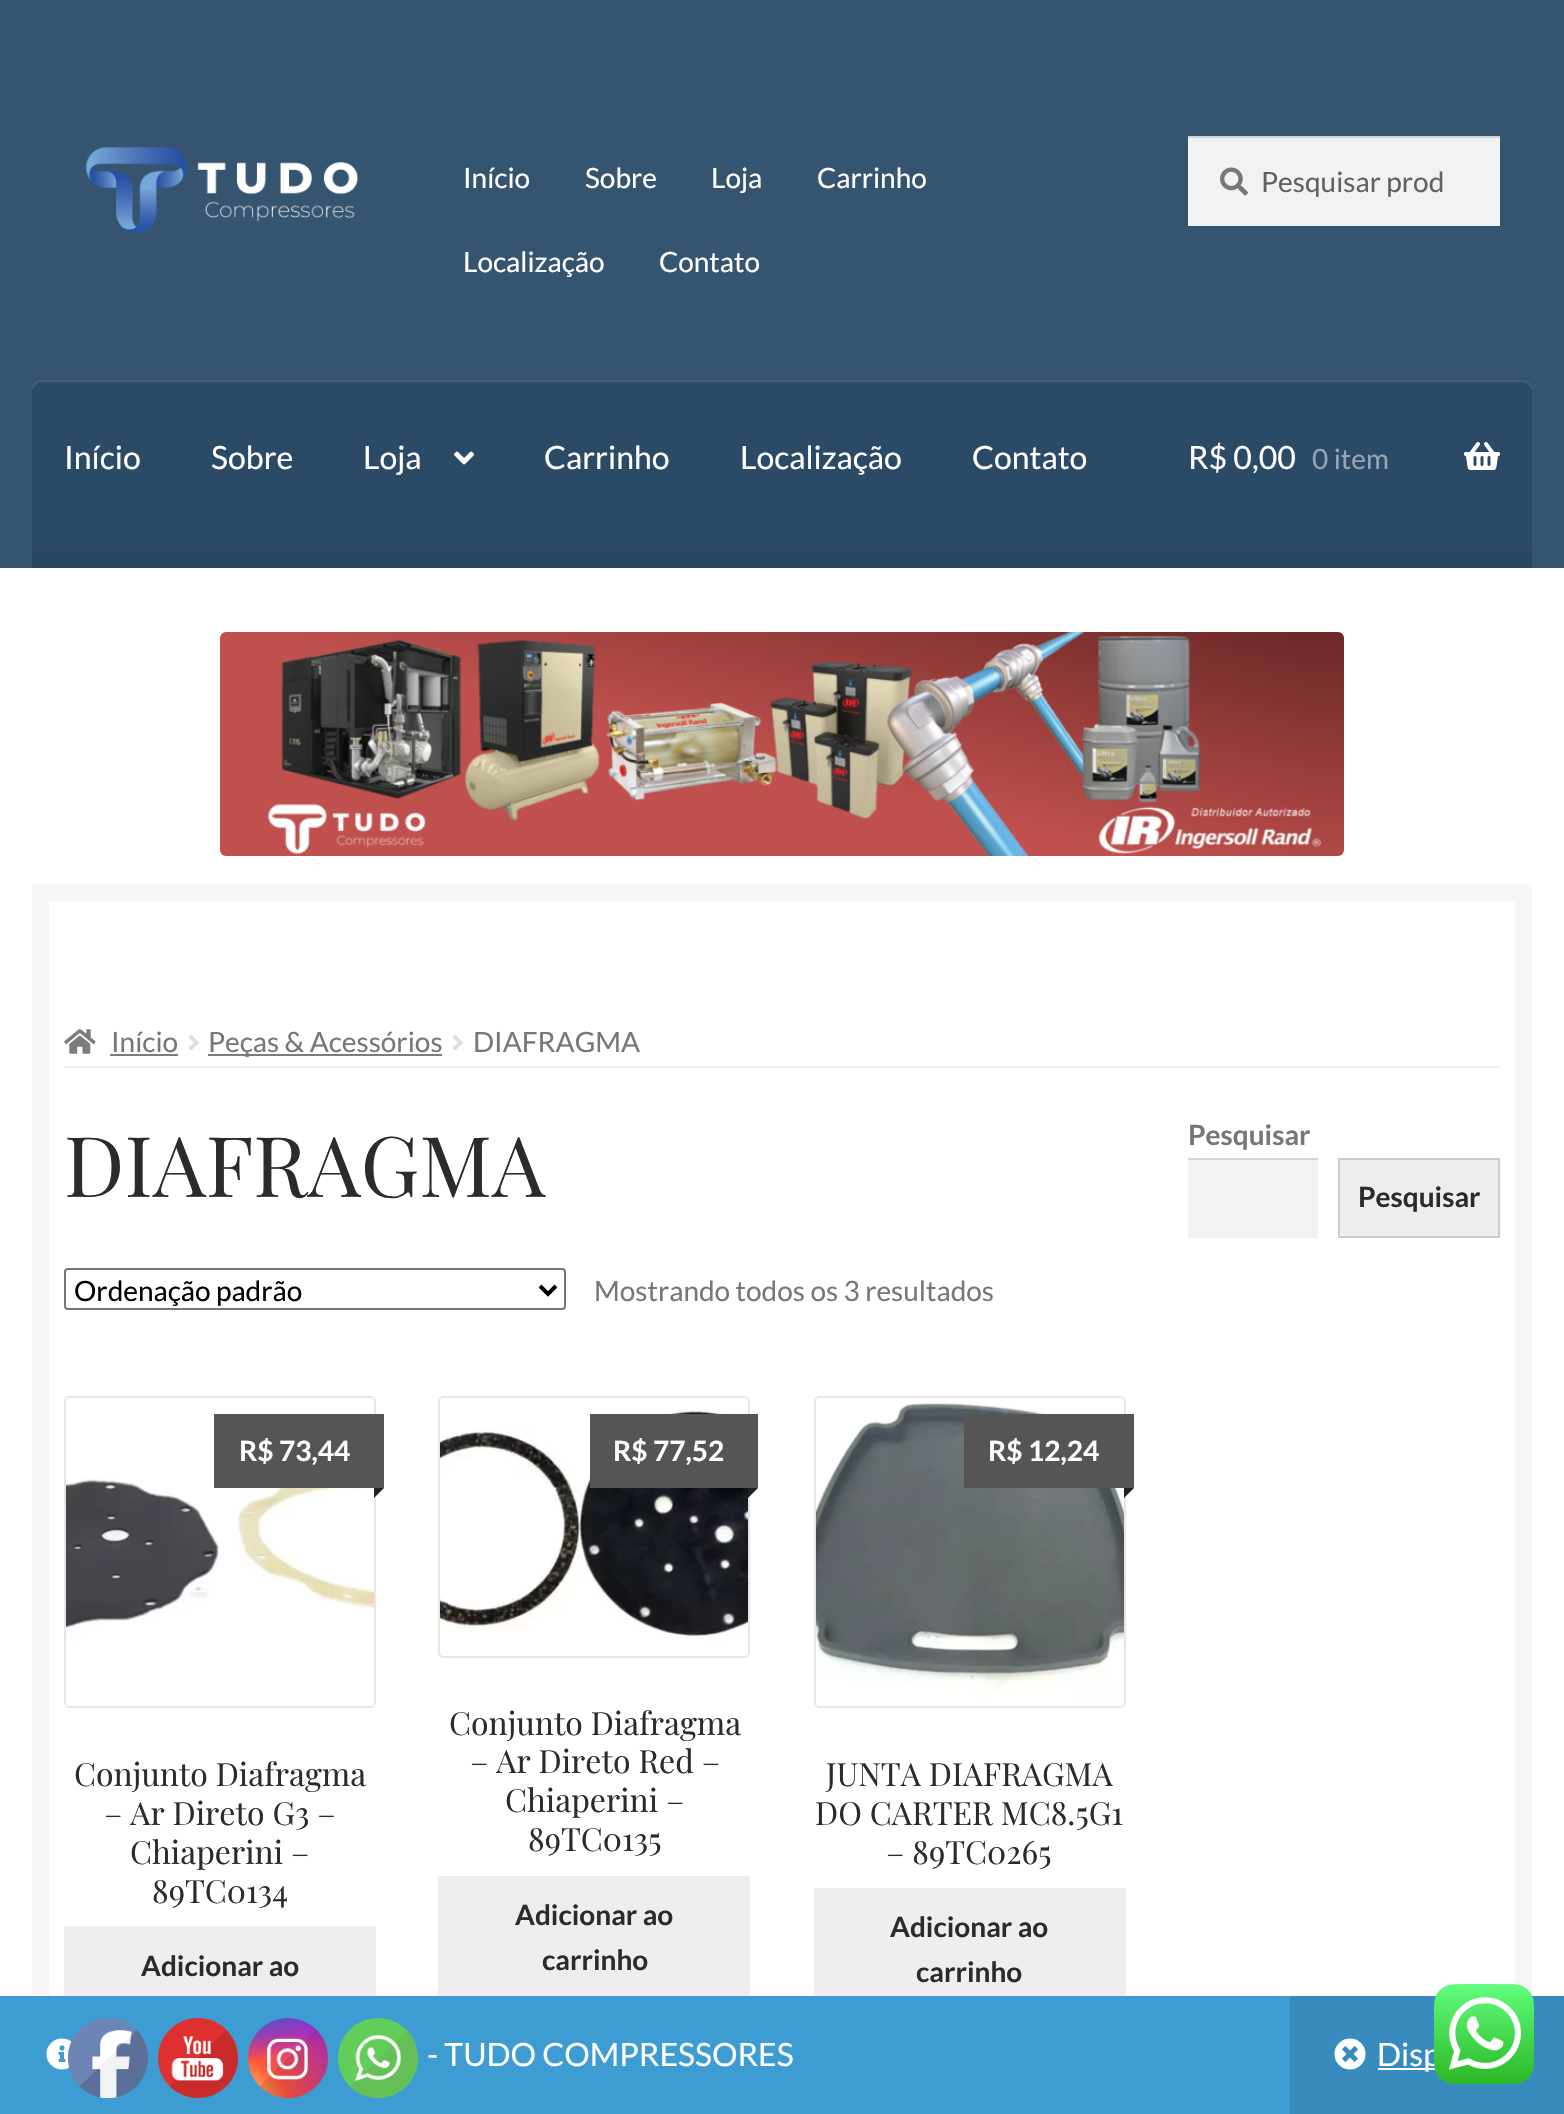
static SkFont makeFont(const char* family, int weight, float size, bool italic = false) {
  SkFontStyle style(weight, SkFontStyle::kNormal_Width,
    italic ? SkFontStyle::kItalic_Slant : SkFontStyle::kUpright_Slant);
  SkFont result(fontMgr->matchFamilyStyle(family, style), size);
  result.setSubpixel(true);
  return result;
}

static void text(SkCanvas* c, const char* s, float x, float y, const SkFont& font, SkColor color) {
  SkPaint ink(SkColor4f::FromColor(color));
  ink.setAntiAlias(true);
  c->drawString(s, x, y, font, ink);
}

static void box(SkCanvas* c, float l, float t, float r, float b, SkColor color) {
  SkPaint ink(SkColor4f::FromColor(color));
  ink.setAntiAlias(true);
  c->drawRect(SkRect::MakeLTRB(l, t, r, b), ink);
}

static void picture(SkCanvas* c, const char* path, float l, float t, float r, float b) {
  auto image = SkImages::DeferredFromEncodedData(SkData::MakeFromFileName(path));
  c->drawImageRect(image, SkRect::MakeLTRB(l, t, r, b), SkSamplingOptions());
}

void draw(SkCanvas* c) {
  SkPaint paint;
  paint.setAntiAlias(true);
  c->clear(0xffffffff);
  box(c, 0, 0, 1564, 568, 0xff355470);
  picture(c, "img_01.png", 85, 147, 358, 233);
  SkFont face1 = makeFont("Lato", 400, 28);
  text(c, "Início", 463, 188, face1, 0xffffffff);
  text(c, "Sobre", 585, 188, face1, 0xffffffff);
  text(c, "Loja", 711, 188, face1, 0xffffffff);
  text(c, "Carrinho", 817, 188, face1, 0xffffffff);
  text(c, "Localização", 463, 272, face1, 0xffffffff);
  text(c, "Contato", 659, 272, face1, 0xffffffff);
  box(c, 1188, 138, 1500, 226, 0xfff2f2f2);
  picture(c, "img_02.png", 1220, 167, 1248, 196);
  box(c, 1188, 136, 1500, 138, 0xffd4d4d4);
  text(c, "Pesquisar prod", 1261, 192, face1, 0xff616161);
  paint.setColor(0xff2b4a66);
  c->drawPath(SkPathBuilder().moveTo(42, 380).lineTo(1522, 380).cubicTo(1527.5f, 380, 1532, 384.5f, 1532, 390).lineTo(1532, 568).lineTo(32, 568).lineTo(32, 390).cubicTo(32, 384.5f, 36.5f, 380, 42, 380).close().detach(), paint);
  box(c, 32, 551, 1532, 568, 0xff294661);
  paint.setColor(0x1affffff);
  c->drawPath(SkPathBuilder().moveTo(42, 382).lineTo(1522, 382).cubicTo(1527, 382, 1532, 387, 1532, 392).lineTo(1532, 390).cubicTo(1532, 384, 1528, 380, 1522, 380).lineTo(42, 380).cubicTo(36, 380, 32, 384, 32, 390).lineTo(32, 392).cubicTo(32, 387, 37, 382, 42, 382).close().detach(), paint);
  SkFont face2 = makeFont("Lato", 400, 32);
  text(c, "Início", 64, 469, face2, 0xffffffff);
  text(c, "Sobre", 211, 469, face2, 0xffffffff);
  text(c, "Loja", 363, 469, face2, 0xffffffff);
  picture(c, "img_03.png", 454, 451, 474, 465);
  text(c, "Carrinho", 544, 469, face2, 0xffffffff);
  text(c, "Localização", 740, 469, face2, 0xffffffff);
  text(c, "Contato", 972, 469, face2, 0xffffffff);
  text(c, "R$ 0,00", 1188, 469, face2, 0xffffffff);
  text(c, "0 item", 1312, 469, face1, 0xff95a5b3);
  picture(c, "img_04.png", 1464, 442, 1500, 470);
  picture(c, "img_05.png", 220, 632, 1344, 856);
  paint.setStyle(SkPaint::kStroke_Style);
  paint.setStrokeWidth(17);
  paint.setColor(0xfff6f6f6);
  c->drawRect(SkRect::MakeLTRB(40.5f, 892.5f, 1523.5f, 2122.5f), paint);
  box(c, 64, 1066, 1500, 1068, 0xfff2f2f2);
  picture(c, "img_06.png", 64, 1029, 96, 1054);
  text(c, "Início", 111, 1052, face1, 0xff777777);
  box(c, 110, 1054, 178, 1056, 0xff7c7c7c);
  picture(c, "img_07.png", 189, 1035, 199, 1051);
  box(c, 208, 1054, 442, 1056, 0xff7c7c7c);
  text(c, "Peças & Acessórios", 208, 1052, face1, 0xff777777);
  picture(c, "img_07.png", 453, 1035, 463, 1051);
  text(c, "DIAFRAGMA", 473, 1052, face1, 0xff777777);
  SkFont face3 = makeFont("Playfair Display", 400, 83.75f);
  text(c, "DIAFRAGMA", 64, 1197, face3, 0xff2b2b2b);
  paint.setStrokeWidth(2);
  paint.setColor(0xff767676);
  c->drawRoundRect(SkRect::MakeLTRB(65, 1269, 565, 1309), 3, 3, paint);
  paint.setStrokeWidth(4);
  paint.setColor(0xff000000);
  c->drawPath(SkPathBuilder().moveTo(540, 1286).lineTo(548, 1294).lineTo(556, 1286).detach(), paint);
  text(c, "Ordenação padrão", 74, 1301, face1, 0xff000000);
  text(c, "Mostrando todos os 3 resultados", 594, 1301, face1, 0xff777777);
  paint.setStrokeWidth(2);
  paint.setColor(0xffe6e6e6);
  c->drawRoundRect(SkRect::MakeLTRB(65, 1397, 375, 1707), 5, 5, paint);
  picture(c, "img_08.png", 66, 1398, 374, 1706);
  box(c, 214, 1414, 384, 1488, 0xff555555);
  SkFont face4 = makeFont("Lato", 700, 28);
  text(c, "R$ 73,44", 239, 1461, face4, 0xffffffff);
  paint.setStyle(SkPaint::kFill_Style);
  paint.setColor(0xff222222);
  c->drawPath(SkPathBuilder().moveTo(374, 1488).lineTo(384, 1488).lineTo(374, 1498).close().detach(), paint);
  SkFont face5 = makeFont("Playfair Display", 400, 32);
  text(c, "Conjunto Diafragma", 74, 1786, face5, 0xff2b2b2b);
  text(c, "– Ar Direto G3 –", 104, 1825, face5, 0xff2b2b2b);
  text(c, "Chiaperini –", 130, 1864, face5, 0xff2b2b2b);
  text(c, "89TC0134", 152, 1903, face5, 0xff2b2b2b);
  box(c, 64, 1926, 376, 1996, 0xffeeeeee);
  text(c, "Adicionar ao", 141, 1976, face4, 0xff2b2b2b);
  paint.setStyle(SkPaint::kStroke_Style);
  paint.setColor(0xffe6e6e6);
  c->drawRoundRect(SkRect::MakeLTRB(439, 1397, 749, 1657), 5, 5, paint);
  picture(c, "img_09.png", 440, 1398, 748, 1656);
  box(c, 590, 1414, 758, 1488, 0xff555555);
  text(c, "R$ 77,52", 613, 1461, face4, 0xffffffff);
  paint.setStyle(SkPaint::kFill_Style);
  paint.setColor(0xff222222);
  c->drawPath(SkPathBuilder().moveTo(748, 1488).lineTo(758, 1488).lineTo(748, 1498).close().detach(), paint);
  text(c, "Conjunto Diafragma", 449, 1735, face5, 0xff2b2b2b);
  text(c, "– Ar Direto Red –", 470, 1773, face5, 0xff2b2b2b);
  text(c, "Chiaperini –", 505, 1812, face5, 0xff2b2b2b);
  text(c, "89TC0135", 528, 1851, face5, 0xff2b2b2b);
  box(c, 438, 1876, 750, 1996, 0xffeeeeee);
  text(c, "Adicionar ao", 515, 1925, face4, 0xff2b2b2b);
  text(c, "carrinho", 542, 1970, face4, 0xff2b2b2b);
  paint.setStyle(SkPaint::kStroke_Style);
  paint.setColor(0xffe6e6e6);
  c->drawRoundRect(SkRect::MakeLTRB(815, 1397, 1125, 1707), 5, 5, paint);
  picture(c, "img_10.png", 816, 1398, 1124, 1706);
  box(c, 964, 1414, 1134, 1488, 0xff555555);
  text(c, "R$ 12,24", 988, 1461, face4, 0xffffffff);
  paint.setStyle(SkPaint::kFill_Style);
  paint.setColor(0xff222222);
  c->drawPath(SkPathBuilder().moveTo(1124, 1488).lineTo(1134, 1488).lineTo(1124, 1498).close().detach(), paint);
  text(c, "JUNTA DIAFRAGMA", 826, 1786, face5, 0xff2b2b2b);
  text(c, "DO CARTER MC8.5G1", 815, 1825, face5, 0xff2b2b2b);
  text(c, "– 89TC0265", 886, 1864, face5, 0xff2b2b2b);
  box(c, 814, 1888, 1126, 1996, 0xffeeeeee);
  text(c, "Adicionar ao", 890, 1937, face4, 0xff2b2b2b);
  text(c, "carrinho", 916, 1982, face4, 0xff2b2b2b);
  text(c, "Pesquisar", 1188, 1145, face4, 0xff777777);
  box(c, 1188, 1160, 1318, 1238, 0xfff2f2f2);
  box(c, 1188, 1158, 1318, 1160, 0xffd4d4d4);
  paint.setColor(0xffeeeeee);
  c->drawRect(SkRect::MakeLTRB(1339, 1159, 1499, 1237), paint);
  paint.setStyle(SkPaint::kStroke_Style);
  paint.setColor(0xffcccccc);
  c->drawRect(SkRect::MakeLTRB(1339, 1159, 1499, 1237), paint);
  text(c, "Pesquisar", 1358, 1207, face4, 0xff2b2b2b);
  box(c, 0, 1996, 1290, 2114, 0xff3d9cd2);
  picture(c, "img_15.png", 46, 2038, 72, 2070);
  picture(c, "img_11.png", 68, 2018, 148, 2098);
  picture(c, "img_12.png", 158, 2018, 238, 2098);
  picture(c, "img_13.png", 248, 2018, 328, 2098);
  picture(c, "img_14.png", 338, 2018, 418, 2098);
  text(c, "- TUDO COMPRESSORES", 427, 2066, face2, 0xffffffff);
  box(c, 1290, 1996, 1564, 2114, 0xff378cbd);
  picture(c, "img_16.png", 1334, 2038, 1366, 2070);
  box(c, 1378, 2068, 1436, 2070, 0xffffffff);
  text(c, "Disp", 1377, 2066, face2, 0xffffffff);
  picture(c, "img_17.png", 1434, 1984, 1534, 2084);
}
